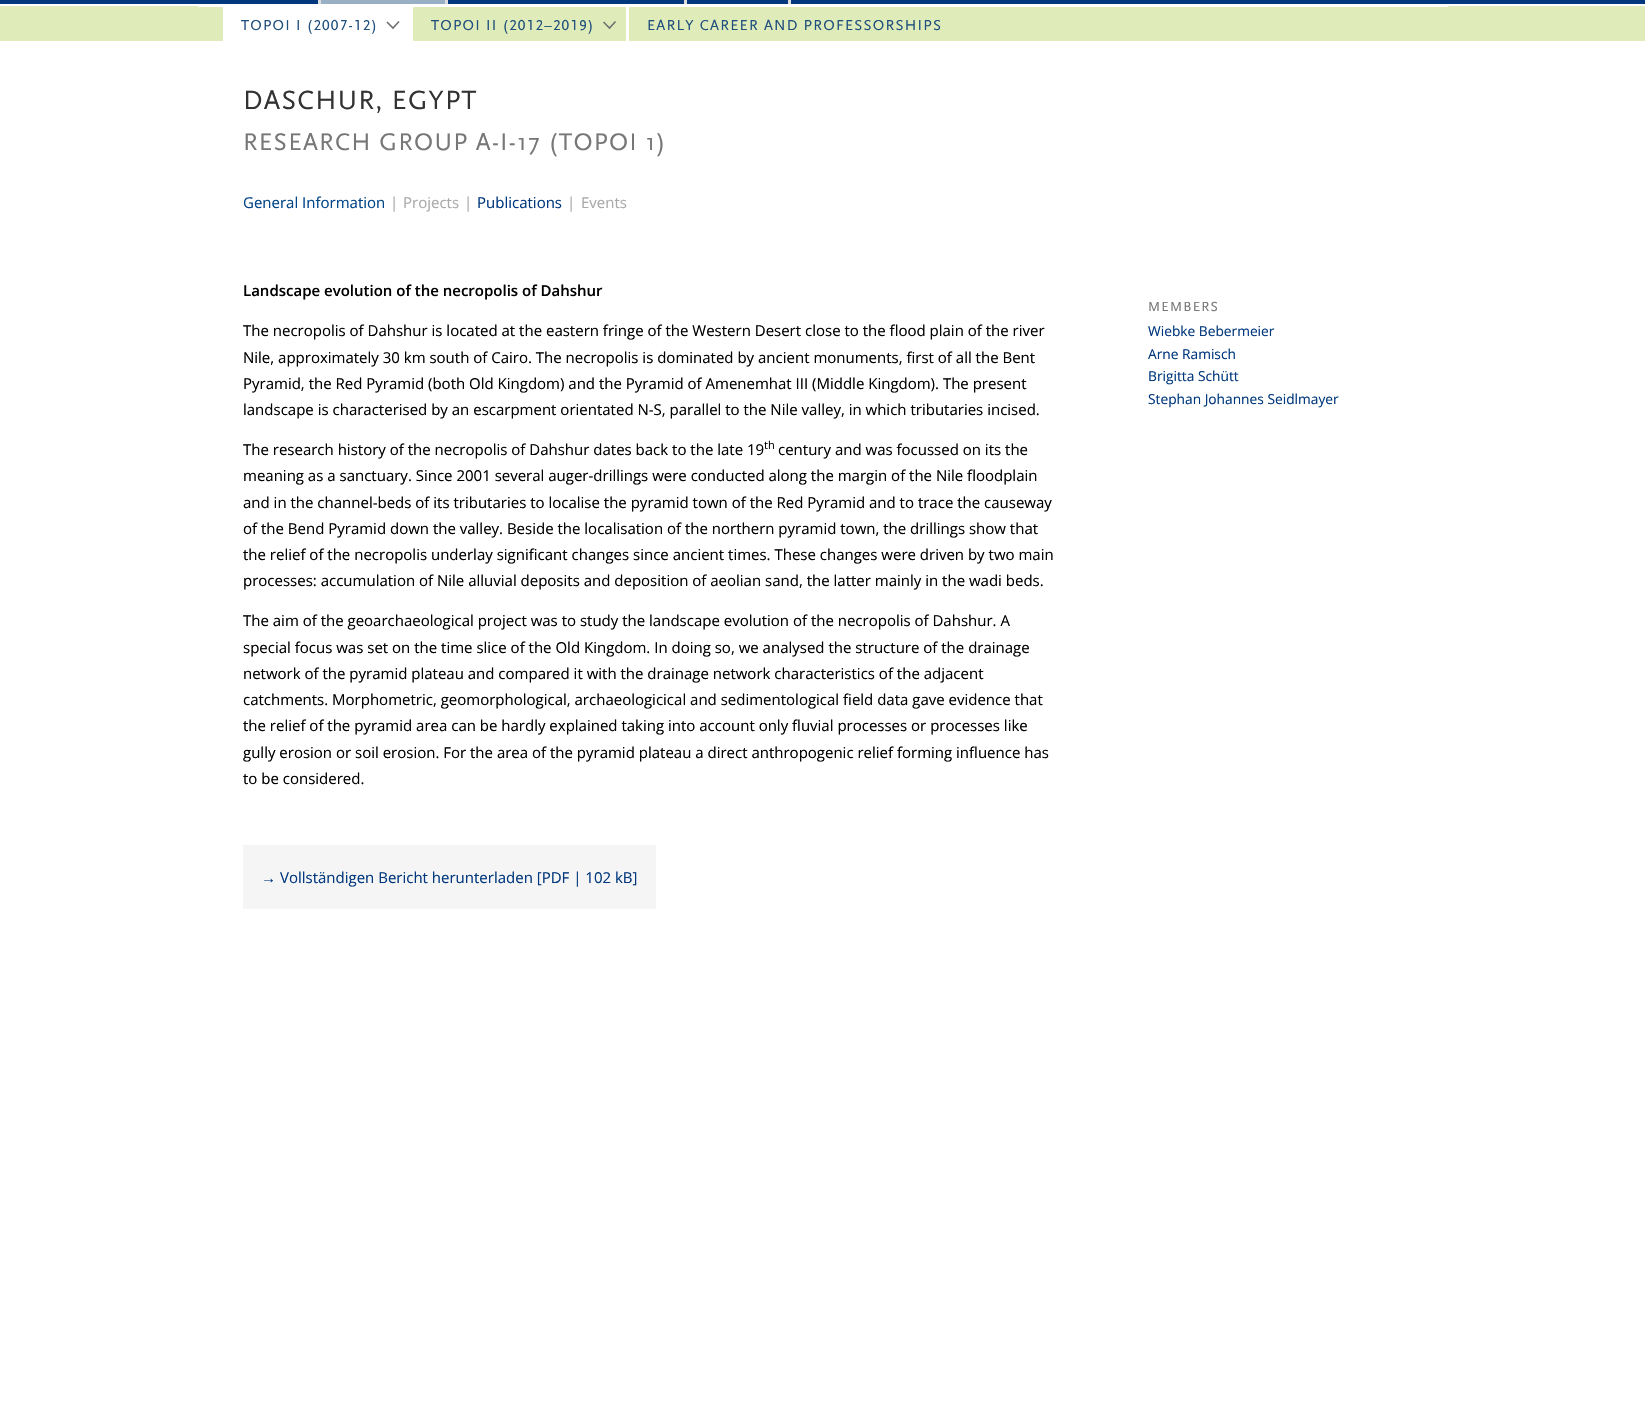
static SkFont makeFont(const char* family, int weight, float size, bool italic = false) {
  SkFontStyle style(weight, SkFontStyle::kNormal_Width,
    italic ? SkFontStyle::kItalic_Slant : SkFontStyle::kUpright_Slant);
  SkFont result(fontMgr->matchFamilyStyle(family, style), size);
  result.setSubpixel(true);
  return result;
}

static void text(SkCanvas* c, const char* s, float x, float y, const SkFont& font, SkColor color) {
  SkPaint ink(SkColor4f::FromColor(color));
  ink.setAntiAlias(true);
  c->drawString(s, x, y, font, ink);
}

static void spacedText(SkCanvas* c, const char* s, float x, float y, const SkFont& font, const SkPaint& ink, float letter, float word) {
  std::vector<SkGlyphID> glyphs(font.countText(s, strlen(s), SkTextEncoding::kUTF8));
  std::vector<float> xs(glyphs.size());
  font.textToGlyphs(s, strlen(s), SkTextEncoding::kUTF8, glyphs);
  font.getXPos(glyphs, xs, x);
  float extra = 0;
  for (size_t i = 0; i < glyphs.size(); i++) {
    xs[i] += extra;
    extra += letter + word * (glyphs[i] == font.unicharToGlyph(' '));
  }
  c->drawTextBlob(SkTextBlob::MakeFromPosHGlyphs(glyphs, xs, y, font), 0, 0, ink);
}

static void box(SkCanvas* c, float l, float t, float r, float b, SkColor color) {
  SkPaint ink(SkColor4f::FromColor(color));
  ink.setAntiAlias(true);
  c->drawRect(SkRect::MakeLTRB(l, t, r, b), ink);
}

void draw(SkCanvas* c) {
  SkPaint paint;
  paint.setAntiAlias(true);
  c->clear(0xffffffff);
  box(c, 0, 0, 1645, 4, 0xff00377d);
  box(c, 0, 6, 1645, 41, 0xffdfecb9);
  box(c, 445, 0, 448, 4, 0xffdddddd);
  box(c, 684, 0, 687, 4, 0xffdddddd);
  box(c, 788, 0, 791, 4, 0xffdddddd);
  box(c, 318, 0, 445, 4, 0xff99afc4);
  box(c, 318, 0, 321, 4, 0xffdddddd);
  box(c, 198, 6, 1448, 7, 0xffffffff);
  box(c, 223, 7, 410, 41, 0xffffffff);
  SkFont face1 = makeFont("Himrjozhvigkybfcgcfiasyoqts", 400, 15);
  paint.setColor(0xff1f4f7d);
  spacedText(c, "TOPOI I (2007-12)", 241, 30, face1, paint, 1.25f, 0);
  paint.setStyle(SkPaint::kStroke_Style);
  paint.setStrokeWidth(1.6f);
  paint.setColor(0xff706f6f);
  c->drawPath(SkPathBuilder().moveTo(387, 22).lineTo(393, 28).lineTo(399, 21.5f).detach(), paint);
  box(c, 410, 6, 413, 41, 0xffffffff);
  paint.setStyle(SkPaint::kFill_Style);
  paint.setColor(0xff1f4f7d);
  spacedText(c, "TOPOI II (2012–2019)", 431, 30, face1, paint, 1.25f, 0);
  paint.setStyle(SkPaint::kStroke_Style);
  paint.setColor(0xff706f6f);
  c->drawPath(SkPathBuilder().moveTo(603.5f, 22).lineTo(609.5f, 28).lineTo(615.5f, 21.5f).detach(), paint);
  box(c, 626, 6, 629, 41, 0xffffffff);
  paint.setStyle(SkPaint::kFill_Style);
  paint.setColor(0xff1f4f7d);
  spacedText(c, "EARLY CAREER AND PROFESSORSHIPS", 647, 30, face1, paint, 1.25f, 0);
  SkFont face2 = makeFont("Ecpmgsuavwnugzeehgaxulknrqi", 400, 27.5f);
  paint.setColor(0xff333333);
  spacedText(c, "DASCHUR, EGYPT", 243, 109, face2, paint, 1.25f, 0);
  SkFont face3 = makeFont("Ecpmgsuavwnugzeehgaxulknrqi", 400, 25);
  paint.setColor(0xff777777);
  spacedText(c, "RESEARCH GROUP A-I-17 (TOPOI 1)", 243, 150, face3, paint, 1.25f, 0);
  SkFont face4 = makeFont("Open Sans", 400, 15);
  text(c, "General Information", 243, 208, face4, 0xff004488);
  text(c, "|", 390, 208, face4, 0xffaaaaaa);
  text(c, "Projects", 403, 208, face4, 0xffaaaaaa);
  text(c, "|", 464, 208, face4, 0xffaaaaaa);
  text(c, "Publications", 477, 208, face4, 0xff00377d);
  text(c, "|", 567, 208, face4, 0xffaaaaaa);
  text(c, "Events", 581, 208, face4, 0xffaaaaaa);
  SkFont face5 = makeFont("Open Sans", 600, 15);
  text(c, "Landscape evolution of the necropolis of Dahshur", 243, 296, face5, 0xff000000);
  text(c, "The necropolis of Dahshur is located at the eastern fringe of the Western Desert close to the flood plain of the river", 243, 336, face4, 0xff000000);
  text(c, "Nile, approximately 30 km south of Cairo. The necropolis is dominated by ancient monuments, first of all the Bent", 243, 363, face4, 0xff000000);
  text(c, "Pyramid, the Red Pyramid (both Old Kingdom) and the Pyramid of Amenemhat III (Middle Kingdom). The present", 243, 389, face4, 0xff000000);
  text(c, "landscape is characterised by an escarpment orientated N-S, parallel to the Nile valley, in which tributaries incised.", 243, 415, face4, 0xff000000);
  text(c, "The research history of the necropolis of Dahshur dates back to the late 19", 243, 455, face4, 0xff000000);
  SkFont face6 = makeFont("Open Sans", 400, 11);
  text(c, "th", 764, 449, face6, 0xff000000);
  text(c, "century and was focussed on its the", 778, 455, face4, 0xff000000);
  text(c, "meaning as a sanctuary. Since 2001 several auger-drillings were conducted along the margin of the Nile floodplain", 243, 481, face4, 0xff000000);
  text(c, "and in the channel-beds of its tributaries to localise the pyramid town of the Red Pyramid and to trace the causeway", 243, 508, face4, 0xff000000);
  text(c, "of the Bend Pyramid down the valley. Beside the localisation of the northern pyramid town, the drillings show that", 243, 534, face4, 0xff000000);
  text(c, "the relief of the necropolis underlay significant changes since ancient times. These changes were driven by two main", 243, 560, face4, 0xff000000);
  text(c, "processes: accumulation of Nile alluvial deposits and deposition of aeolian sand, the latter mainly in the wadi beds.", 243, 586, face4, 0xff000000);
  text(c, "The aim of the geoarchaeological project was to study the landscape evolution of the necropolis of Dahshur. A", 243, 626, face4, 0xff000000);
  text(c, "special focus was set on the time slice of the Old Kingdom. In doing so, we analysed the structure of the drainage", 243, 653, face4, 0xff000000);
  text(c, "network of the pyramid plateau and compared it with the drainage network characteristics of the adjacent", 243, 679, face4, 0xff000000);
  text(c, "catchments. Morphometric, geomorphological, archaeologicical and sedimentological field data gave evidence that", 243, 705, face4, 0xff000000);
  text(c, "the relief of the pyramid area can be hardly explained taking into account only fluvial processes or processes like", 243, 731, face4, 0xff000000);
  text(c, "gully erosion or soil erosion. For the area of the pyramid plateau a direct anthropogenic relief forming influence has", 243, 758, face4, 0xff000000);
  text(c, "to be considered.", 243, 784, face4, 0xff000000);
  box(c, 243, 845, 656, 909, 0xfff5f5f5);
  SkFont face7 = makeFont("Liberation Sans", 400, 15);
  text(c, "→", 261, 883, face7, 0xff00377d);
  text(c, "Vollständigen Bericht herunterladen [PDF | 102 kB]", 280, 883, face4, 0xff00377d);
  SkFont face8 = makeFont("Ecpmgsuavwnugzeehgaxulknrqi", 400, 13.75f);
  spacedText(c, "MEMBERS", 1148, 311, face8, paint, 1.25f, 0);
  SkFont face9 = makeFont("Open Sans", 400, 13.75f);
  text(c, "Wiebke Bebermeier", 1148, 336, face9, 0xff00377d);
  text(c, "Arne Ramisch", 1148, 359, face9, 0xff00377d);
  text(c, "Brigitta Schütt", 1148, 381, face9, 0xff00377d);
  text(c, "Stephan Johannes Seidlmayer", 1148, 404, face9, 0xff00377d);
}
